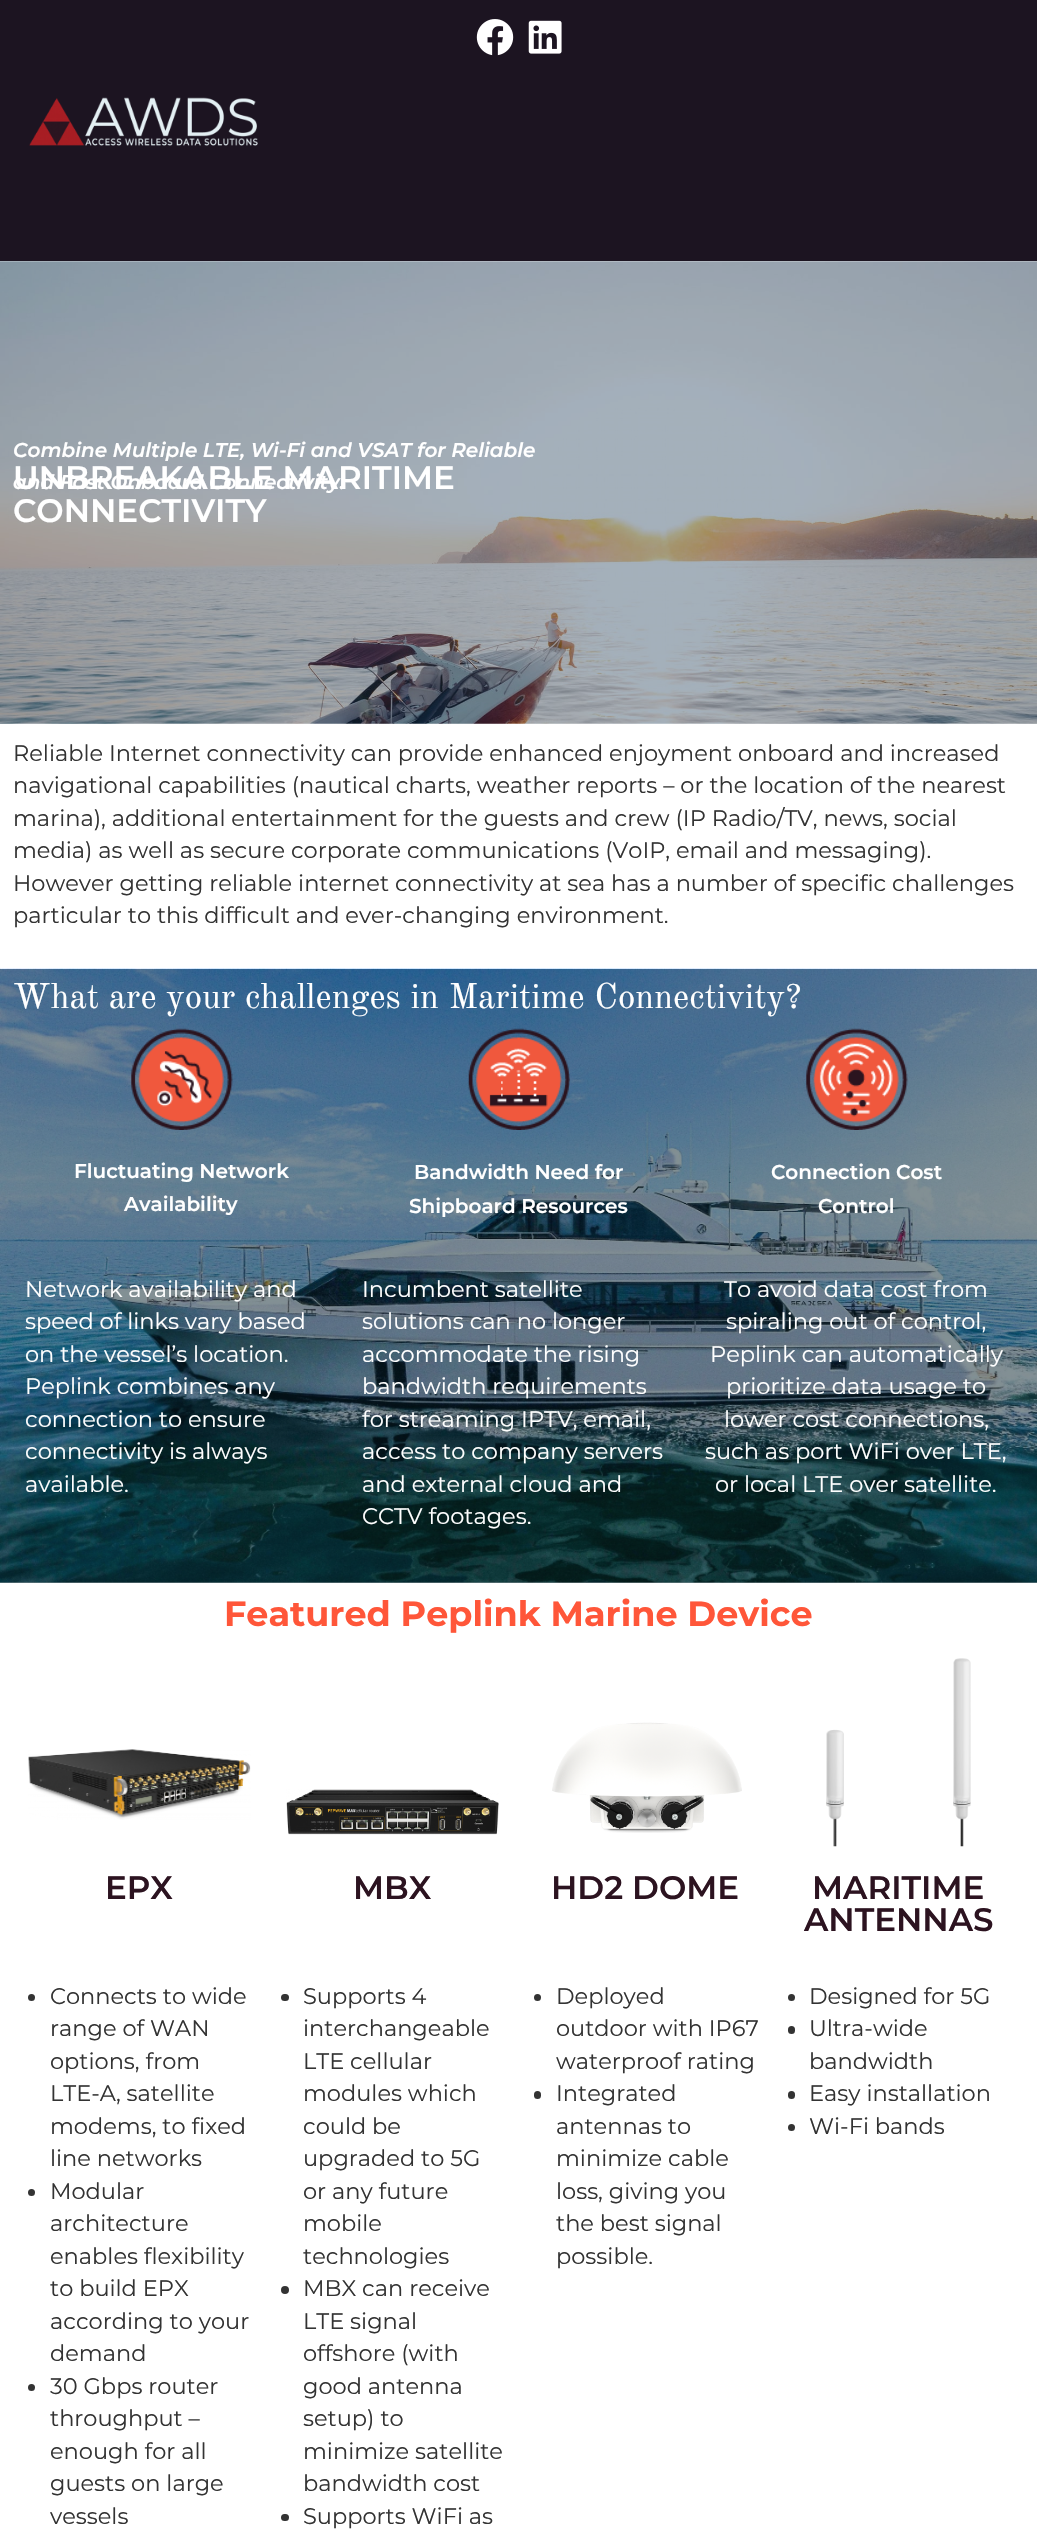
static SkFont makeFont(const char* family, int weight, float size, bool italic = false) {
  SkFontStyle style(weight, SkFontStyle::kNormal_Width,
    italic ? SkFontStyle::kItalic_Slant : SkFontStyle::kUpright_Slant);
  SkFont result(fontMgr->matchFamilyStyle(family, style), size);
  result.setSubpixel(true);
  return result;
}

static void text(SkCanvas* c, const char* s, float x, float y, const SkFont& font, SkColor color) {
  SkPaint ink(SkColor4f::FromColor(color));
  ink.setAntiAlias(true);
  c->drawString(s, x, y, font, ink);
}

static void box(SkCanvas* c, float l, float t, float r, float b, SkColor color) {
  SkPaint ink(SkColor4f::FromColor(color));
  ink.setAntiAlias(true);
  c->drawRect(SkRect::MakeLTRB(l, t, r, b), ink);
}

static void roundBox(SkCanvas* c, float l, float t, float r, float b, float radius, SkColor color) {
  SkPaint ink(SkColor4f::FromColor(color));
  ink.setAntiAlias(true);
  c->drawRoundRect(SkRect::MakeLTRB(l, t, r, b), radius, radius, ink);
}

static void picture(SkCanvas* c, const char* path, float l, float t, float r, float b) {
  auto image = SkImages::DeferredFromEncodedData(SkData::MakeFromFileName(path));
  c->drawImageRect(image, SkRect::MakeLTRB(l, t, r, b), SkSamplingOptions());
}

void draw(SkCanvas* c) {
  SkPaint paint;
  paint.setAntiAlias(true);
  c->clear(0xffffffff);
  box(c, 0, 1582, 1037, 1583, 0xff829095);
  box(c, 0, 0, 1037, 261, 0xff1c1421);
  picture(c, "img_01.png", 29, 97, 258, 146);
  picture(c, "img_02.png", 476, 19, 514, 56);
  picture(c, "img_03.png", 528, 20, 562, 54);
  picture(c, "img_04.png", 0, 261, 1037, 724);
  SkFont face1 = makeFont("Montserrat", 600, 20, true);
  text(c, "Combine Multiple LTE, Wi-Fi and VSAT for Reliable", 13, 457, face1, 0xffffffff);
  SkFont face2 = makeFont("Montserrat", 600, 32.5f);
  text(c, "UNBREAKABLE MARITIME", 13, 489, face2, 0xffffffff);
  text(c, "and Fast Onboard Connectivity.", 13, 489, face1, 0xffffffff);
  text(c, "CONNECTIVITY", 13, 522, face2, 0xffffffff);
  SkFont face3 = makeFont("Montserrat", 400, 22.5f);
  text(c, "Reliable Internet connectivity can provide enhanced enjoyment onboard and increased", 13, 761, face3, 0xff333333);
  text(c, "navigational capabilities (nautical charts, weather reports – or the location of the nearest", 13, 793, face3, 0xff333333);
  text(c, "marina), additional entertainment for the guests and crew (IP Radio/TV, news, social", 13, 826, face3, 0xff333333);
  text(c, "media) as well as secure corporate communications (VoIP, email and messaging).", 13, 858, face3, 0xff333333);
  text(c, "However getting reliable internet connectivity at sea has a number of specific challenges", 13, 891, face3, 0xff333333);
  text(c, "particular to this difficult and ever-changing environment.", 13, 923, face3, 0xff333333);
  picture(c, "img_05.png", 0, 968, 1037, 1583);
  SkFont face4 = makeFont("Old Standard TT", 400, 35);
  text(c, "What are your challenges in Maritime Connectivity?", 13, 1008, face4, 0xffffffff);
  picture(c, "img_06.png", 131, 1028, 233, 1130);
  picture(c, "img_07.png", 468, 1028, 570, 1130);
  picture(c, "img_08.png", 806, 1028, 908, 1130);
  SkFont face5 = makeFont("Montserrat", 600, 20);
  text(c, "Fluctuating Network", 74, 1178, face5, 0xffffffff);
  text(c, "Availability", 124, 1211, face5, 0xffffffff);
  text(c, "Bandwidth Need for", 414, 1179, face5, 0xffffffff);
  text(c, "Shipboard Resources", 409, 1213, face5, 0xffffffff);
  text(c, "Connection Cost", 771, 1179, face5, 0xffffffff);
  text(c, "Control", 818, 1213, face5, 0xffffffff);
  text(c, "Network availability and", 25, 1297, face3, 0xffffffff);
  text(c, "speed of links vary based", 25, 1329, face3, 0xffffffff);
  text(c, "on the vessel’s location.", 25, 1362, face3, 0xffffffff);
  text(c, "Peplink combines any", 25, 1394, face3, 0xffffffff);
  text(c, "connection to ensure", 25, 1427, face3, 0xffffffff);
  text(c, "connectivity is always", 25, 1459, face3, 0xffffffff);
  text(c, "available.", 25, 1492, face3, 0xffffffff);
  text(c, "Incumbent satellite", 362, 1297, face3, 0xffffffff);
  text(c, "solutions can no longer", 362, 1329, face3, 0xffffffff);
  text(c, "accommodate the rising", 362, 1362, face3, 0xffffffff);
  text(c, "bandwidth requirements", 362, 1394, face3, 0xffffffff);
  text(c, "for streaming IPTV, email,", 362, 1427, face3, 0xffffffff);
  text(c, "access to company servers", 362, 1459, face3, 0xffffffff);
  text(c, "and external cloud and", 362, 1492, face3, 0xffffffff);
  text(c, "CCTV footages.", 362, 1524, face3, 0xffffffff);
  text(c, "To avoid data cost from", 724, 1297, face3, 0xffffffff);
  text(c, "spiraling out of control,", 726, 1329, face3, 0xffffffff);
  text(c, "Peplink can automatically", 710, 1362, face3, 0xffffffff);
  text(c, "prioritize data usage to", 726, 1394, face3, 0xffffffff);
  text(c, "lower cost connections,", 724, 1427, face3, 0xffffffff);
  text(c, "such as port WiFi over LTE,", 705, 1459, face3, 0xffffffff);
  text(c, "or local LTE over satellite.", 715, 1492, face3, 0xffffffff);
  SkFont face6 = makeFont("Montserrat", 700, 35);
  text(c, "Featured Peplink Marine Device", 224, 1626, face6, 0xffff5639);
  picture(c, "img_09.png", 28, 1749, 251, 1820);
  picture(c, "img_10.png", 286, 1789, 499, 1835);
  picture(c, "img_11.png", 552, 1722, 742, 1833);
  picture(c, "img_12.png", 826, 1729, 844, 1847);
  picture(c, "img_13.png", 953, 1658, 971, 1847);
  text(c, "EPX", 105, 1899, face2, 0xff2c1320);
  text(c, "MBX", 353, 1899, face2, 0xff2c1320);
  text(c, "HD2 DOME", 551, 1899, face2, 0xff2c1320);
  text(c, "MARITIME", 812, 1899, face2, 0xff2c1320);
  text(c, "ANTENNAS", 804, 1931, face2, 0xff2c1320);
  paint.setColor(0xff333333);
  c->drawCircle(31.5f, 1997.5f, 3.5f, paint);
  text(c, "Connects to wide", 50, 2004, face3, 0xff333333);
  text(c, "range of WAN", 50, 2036, face3, 0xff333333);
  text(c, "options, from", 50, 2069, face3, 0xff333333);
  text(c, "LTE-A, satellite", 50, 2101, face3, 0xff333333);
  text(c, "modems, to fixed", 50, 2134, face3, 0xff333333);
  text(c, "line networks", 50, 2166, face3, 0xff333333);
  c->drawCircle(31.5f, 2192.5f, 3.5f, paint);
  text(c, "Modular", 50, 2199, face3, 0xff333333);
  text(c, "architecture", 50, 2231, face3, 0xff333333);
  text(c, "enables flexibility", 50, 2264, face3, 0xff333333);
  text(c, "to build EPX", 50, 2296, face3, 0xff333333);
  text(c, "according to your", 50, 2329, face3, 0xff333333);
  text(c, "demand", 50, 2361, face3, 0xff333333);
  c->drawCircle(31.5f, 2387.5f, 3.5f, paint);
  text(c, "30 Gbps router", 50, 2394, face3, 0xff333333);
  text(c, "throughput –", 50, 2426, face3, 0xff333333);
  text(c, "enough for all", 50, 2459, face3, 0xff333333);
  text(c, "guests on large", 50, 2491, face3, 0xff333333);
  text(c, "vessels", 50, 2524, face3, 0xff333333);
  roundBox(c, 281, 1994, 289, 2001, 3.5f, 0xff333333);
  text(c, "Supports 4", 303, 2004, face3, 0xff333333);
  text(c, "interchangeable", 303, 2036, face3, 0xff333333);
  text(c, "LTE cellular", 303, 2069, face3, 0xff333333);
  text(c, "modules which", 303, 2101, face3, 0xff333333);
  text(c, "could be", 303, 2134, face3, 0xff333333);
  text(c, "upgraded to 5G", 303, 2166, face3, 0xff333333);
  text(c, "or any future", 303, 2199, face3, 0xff333333);
  text(c, "mobile", 303, 2231, face3, 0xff333333);
  text(c, "technologies", 303, 2264, face3, 0xff333333);
  c->drawCircle(285, 2290, 4, paint);
  text(c, "MBX can receive", 303, 2296, face3, 0xff333333);
  text(c, "LTE signal", 303, 2329, face3, 0xff333333);
  text(c, "offshore (with", 303, 2361, face3, 0xff333333);
  text(c, "good antenna", 303, 2394, face3, 0xff333333);
  text(c, "setup) to", 303, 2426, face3, 0xff333333);
  text(c, "minimize satellite", 303, 2459, face3, 0xff333333);
  text(c, "bandwidth cost", 303, 2491, face3, 0xff333333);
  roundBox(c, 281, 2514, 289, 2521, 3.5f, 0xff333333);
  text(c, "Supports WiFi as", 303, 2524, face3, 0xff333333);
  c->drawCircle(537.5f, 1997.5f, 3.5f, paint);
  text(c, "Deployed", 556, 2004, face3, 0xff333333);
  text(c, "outdoor with IP67", 556, 2036, face3, 0xff333333);
  text(c, "waterproof rating", 556, 2069, face3, 0xff333333);
  roundBox(c, 534, 2091, 541, 2099, 3.5f, 0xff333333);
  text(c, "Integrated", 556, 2101, face3, 0xff333333);
  text(c, "antennas to", 556, 2134, face3, 0xff333333);
  text(c, "minimize cable", 556, 2166, face3, 0xff333333);
  text(c, "loss, giving you", 556, 2199, face3, 0xff333333);
  text(c, "the best signal", 556, 2231, face3, 0xff333333);
  text(c, "possible.", 556, 2264, face3, 0xff333333);
  c->drawCircle(791.5f, 1997.5f, 3.5f, paint);
  text(c, "Designed for 5G", 809, 2004, face3, 0xff333333);
  roundBox(c, 788, 2026, 795, 2034, 3.5f, 0xff333333);
  text(c, "Ultra-wide", 809, 2036, face3, 0xff333333);
  text(c, "bandwidth", 809, 2069, face3, 0xff333333);
  roundBox(c, 788, 2091, 795, 2099, 3.5f, 0xff333333);
  text(c, "Easy installation", 809, 2101, face3, 0xff333333);
  c->drawCircle(791.5f, 2127.5f, 3.5f, paint);
  text(c, "Wi-Fi bands", 809, 2134, face3, 0xff333333);
}
